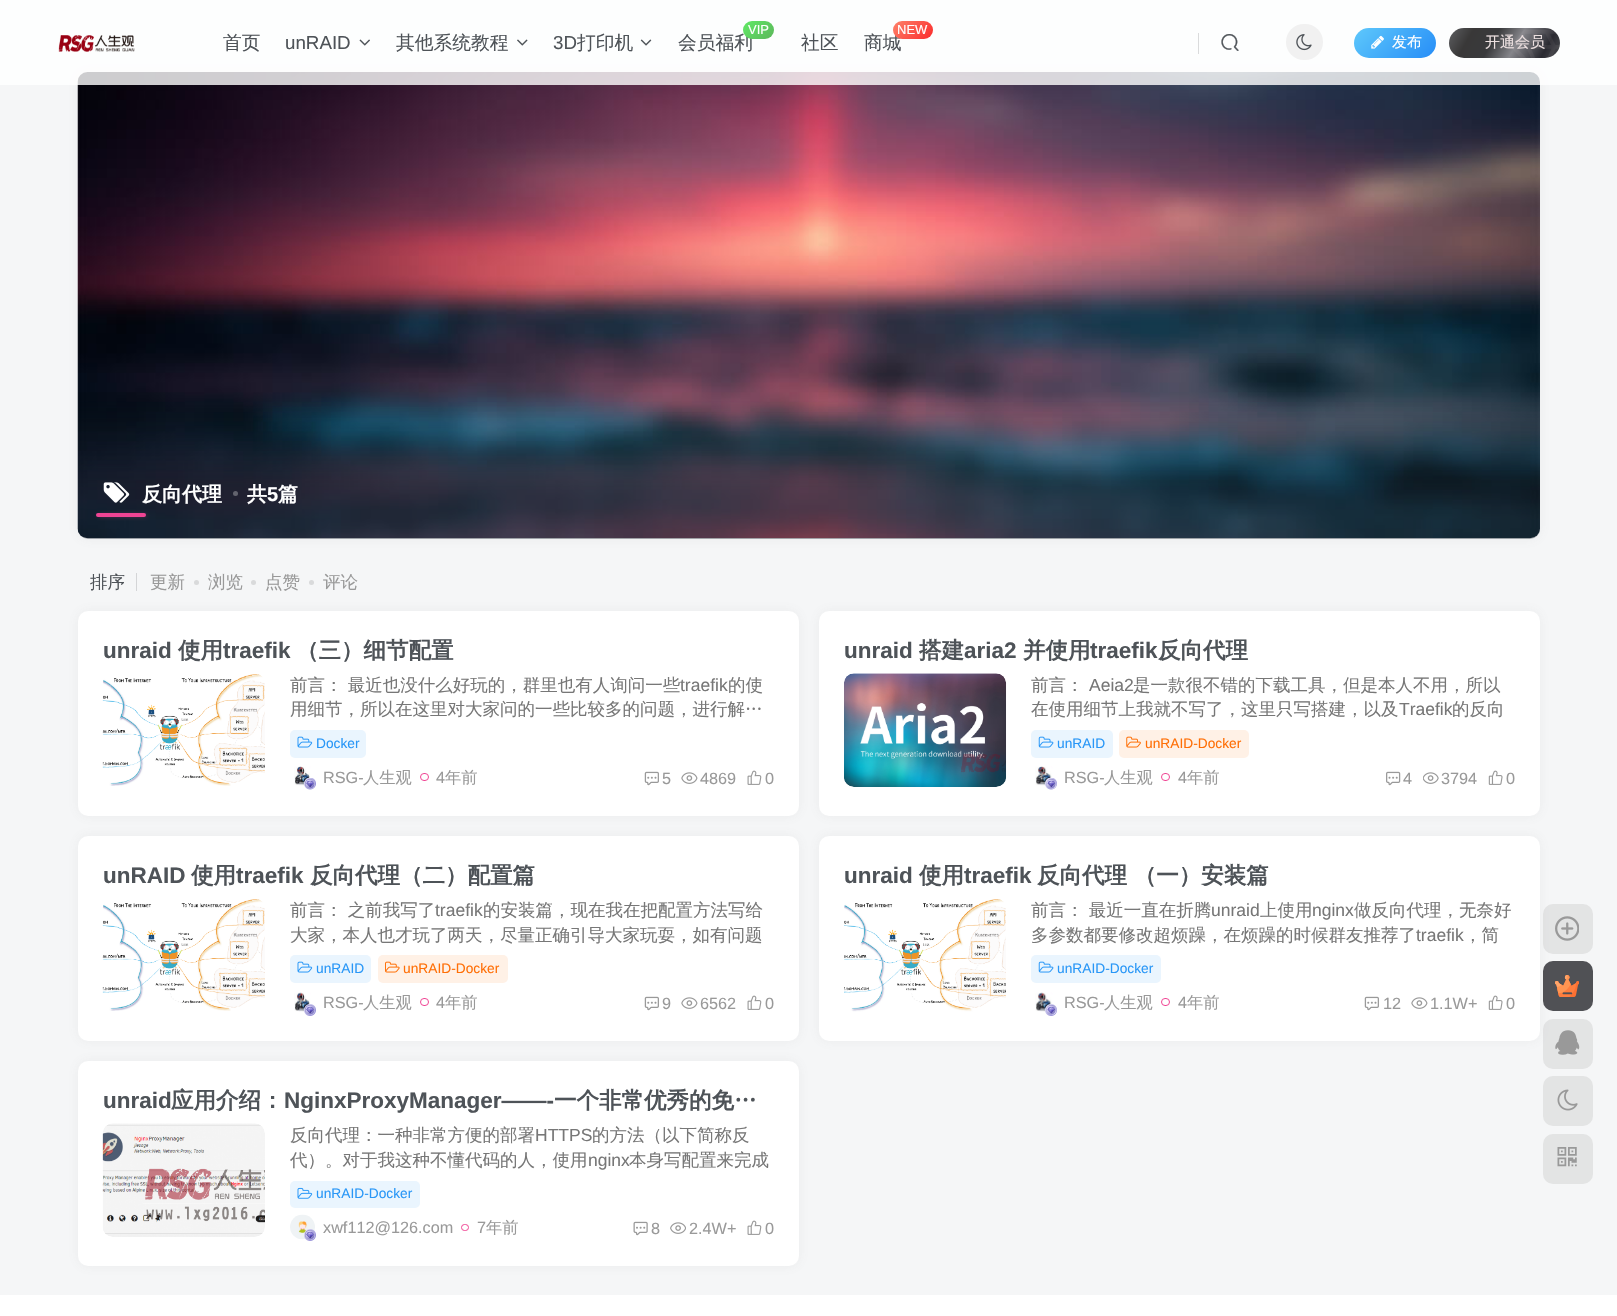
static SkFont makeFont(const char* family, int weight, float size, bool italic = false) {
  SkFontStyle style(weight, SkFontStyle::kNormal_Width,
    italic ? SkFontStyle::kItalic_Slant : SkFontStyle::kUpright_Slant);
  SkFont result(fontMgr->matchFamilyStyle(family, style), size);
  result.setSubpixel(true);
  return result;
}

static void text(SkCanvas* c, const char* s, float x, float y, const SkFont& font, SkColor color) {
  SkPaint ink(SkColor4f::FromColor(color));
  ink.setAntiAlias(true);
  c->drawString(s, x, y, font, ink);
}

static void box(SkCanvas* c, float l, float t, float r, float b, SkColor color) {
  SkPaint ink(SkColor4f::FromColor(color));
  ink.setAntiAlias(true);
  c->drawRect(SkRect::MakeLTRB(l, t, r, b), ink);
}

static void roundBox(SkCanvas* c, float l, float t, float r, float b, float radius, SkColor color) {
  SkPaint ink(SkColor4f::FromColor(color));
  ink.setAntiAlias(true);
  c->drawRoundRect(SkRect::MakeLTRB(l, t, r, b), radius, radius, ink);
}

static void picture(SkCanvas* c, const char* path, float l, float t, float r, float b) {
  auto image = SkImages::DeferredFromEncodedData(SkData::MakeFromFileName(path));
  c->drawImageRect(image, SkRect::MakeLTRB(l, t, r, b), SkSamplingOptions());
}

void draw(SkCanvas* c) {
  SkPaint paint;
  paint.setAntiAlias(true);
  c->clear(0xfff5f6f7);
  paint.setColor(0x14747474);
  paint.setMaskFilter(SkMaskFilter::MakeBlur(kNormal_SkBlurStyle, 6));
  c->drawRoundRect(SkRect::MakeLTRB(78, 73, 1540, 539), 10, 10, paint);
  paint.setMaskFilter(nullptr);
  roundBox(c, 78, 73, 1540, 539, 10, 0xffffffff);
  picture(c, "img_09.png", 77, 72, 1540, 539);
  {
    const SkColor colors[] = {0x661d2931, 0x001d2931};
    const float stops[] = {0.11f, 0.3f};
    const SkPoint ends[] = {{809, 539}, {809, 73}};
    paint.setShader(SkGradientShader::MakeLinear(ends, colors, stops, 2, SkTileMode::kClamp));
    paint.setAlpha(255);
  }
  c->drawRoundRect(SkRect::MakeLTRB(78, 73, 1540, 539), 10, 10, paint);
  box(c, 0, 0, 1617, 85, 0xccffffff);
  picture(c, "img_01.png", 58, 35, 135, 52);
  SkFont face1 = makeFont("WenQuanYi Zen Hei", 500, 18.75f);
  text(c, "首页", 223, 49, face1, 0xff4e5358);
  SkFont face2 = makeFont("Liberation Sans", 400, 18.75f);
  text(c, "unRAID", 285, 49, face2, 0xff4e5358);
  picture(c, "img_02.png", 359, 39, 370, 46);
  text(c, "其他系统教程", 396, 49, face1, 0xff4e5358);
  picture(c, "img_03.png", 517, 39, 528, 46);
  text(c, "3D", 553, 49, face2, 0xff4e5358);
  text(c, "打印机", 577, 49, face1, 0xff4e5358);
  picture(c, "img_04.png", 640, 39, 652, 46);
  text(c, "会员福利", 678, 49, face1, 0xff4e5358);
  {
    const SkColor colors[] = {0xff60e464, 0xff5cb85b};
    const float stops[] = {0.1f, 1};
    const SkPoint ends[] = {{746, 18}, {770, 42}};
    paint.setShader(SkGradientShader::MakeLinear(ends, colors, stops, 2, SkTileMode::kClamp));
    paint.setAlpha(255);
  }
  c->drawRoundRect(SkRect::MakeLTRB(743, 21, 774, 39), 9, 9, paint);
  SkFont face3 = makeFont("Liberation Sans", 400, 13);
  text(c, "VIP", 748, 34, face3, 0xffffffff);
  text(c, "社区", 801, 49, face1, 0xff4e5358);
  text(c, "商城", 864, 49, face1, 0xff4e5358);
  {
    const SkColor colors[] = {0xfffd7a64, 0xfffb2d2d};
    const float stops[] = {0.1f, 1};
    const SkPoint ends[] = {{898, 16}, {927, 44}};
    paint.setShader(SkGradientShader::MakeLinear(ends, colors, stops, 2, SkTileMode::kClamp));
    paint.setAlpha(255);
  }
  c->drawRoundRect(SkRect::MakeLTRB(893, 21, 933, 39), 9, 9, paint);
  text(c, "NEW", 897, 34, face3, 0xffffffff);
  box(c, 1198, 33, 1199, 54, 0xffdadbdc);
  picture(c, "img_05.png", 1221, 34, 1239, 51);
  roundBox(c, 1286, 24, 1323, 60, 18, 0xfff1f1f1);
  picture(c, "img_06.png", 1296, 34, 1312, 51);
  {
    const SkColor colors[] = {0xff59c3fb, 0xff268df7};
    const float stops[] = {0.1f, 1};
    const SkPoint ends[] = {{1367, 14}, {1423, 71}};
    paint.setShader(SkGradientShader::MakeLinear(ends, colors, stops, 2, SkTileMode::kClamp));
    paint.setAlpha(255);
  }
  c->drawRoundRect(SkRect::MakeLTRB(1354, 28, 1436, 58), 15, 15, paint);
  picture(c, "img_07.png", 1371, 35, 1384, 49);
  SkFont face4 = makeFont("WenQuanYi Zen Hei", 500, 15);
  text(c, "发布", 1392, 47, face4, 0xffffffff);
  {
    const SkColor colors[] = {0xff4c4d51, 0xff2a2a31, 0xff85858a, 0xff393a3c, 0xff393838, 0xff5e5f62};
    const float stops[] = {0, 0.15f, 0.4f, 0.6f, 0.8f, 1};
    const SkPoint ends[] = {{1553, 70}, {1456, 15}};
    paint.setShader(SkGradientShader::MakeLinear(ends, colors, stops, 6, SkTileMode::kClamp));
    paint.setAlpha(255);
  }
  c->drawRoundRect(SkRect::MakeLTRB(1449, 28, 1560, 58), 15, 15, paint);
  text(c, "开通会员", 1485, 47, face4, 0xffece0e0);
  picture(c, "img_08.png", 1511, 30, 1560, 58);
  picture(c, "img_10.png", 103, 482, 130, 503);
  SkFont face5 = makeFont("WenQuanYi Zen Hei", 700, 20);
  text(c, "反向代理", 142, 501, face5, 0xffffffff);
  paint.setShader(nullptr);
  paint.setColor(0xff63636e);
  c->drawCircle(235.5f, 493.5f, 2.5f, paint);
  text(c, "共", 247, 501, face5, 0xffffffff);
  SkFont face6 = makeFont("Liberation Sans", 700, 20);
  text(c, "5", 267, 501, face6, 0xffffffff);
  text(c, "篇", 278, 501, face5, 0xffffffff);
  paint.setColor(0xfff04494);
  paint.setMaskFilter(SkMaskFilter::MakeBlur(kNormal_SkBlurStyle, 2));
  c->drawRoundRect(SkRect::MakeLTRB(99, 515, 146, 516), 0.5f, 0.5f, paint);
  paint.setMaskFilter(nullptr);
  roundBox(c, 96, 513, 146, 517, 2, 0xfff04494);
  SkFont face7 = makeFont("WenQuanYi Zen Hei", 500, 17.5f);
  text(c, "排序", 90, 588, face7, 0xff4e5358);
  box(c, 136, 573, 137, 591, 0xffd4d5d7);
  text(c, "更新", 150, 588, face7, 0xff999999);
  paint.setColor(0xffd9dadb);
  c->drawCircle(196.5f, 582.5f, 2.5f, paint);
  text(c, "浏览", 208, 588, face7, 0xff999999);
  c->drawCircle(253.5f, 582.5f, 2.5f, paint);
  text(c, "点赞", 265, 588, face7, 0xff999999);
  c->drawCircle(311.5f, 582.5f, 2.5f, paint);
  text(c, "评论", 323, 588, face7, 0xff999999);
  paint.setColor(0x14747474);
  paint.setMaskFilter(SkMaskFilter::MakeBlur(kNormal_SkBlurStyle, 6));
  c->drawRoundRect(SkRect::MakeLTRB(78, 611, 799, 816), 10, 10, paint);
  paint.setMaskFilter(nullptr);
  roundBox(c, 78, 611, 799, 816, 10, 0xffffffff);
  SkFont face8 = makeFont("Liberation Sans", 700, 22.5f);
  text(c, "unraid", 103, 658, face8, 0xff4e5358);
  SkFont face9 = makeFont("WenQuanYi Zen Hei", 700, 22.5f);
  text(c, "使用", 178, 658, face9, 0xff4e5358);
  text(c, "traefik", 223, 658, face8, 0xff4e5358);
  text(c, "（三）细节配置", 296, 658, face9, 0xff4e5358);
  picture(c, "img_11.png", 102, 674, 265, 786);
  text(c, "前言： 最近也没什么好玩的，群里也有人询问一些", 290, 691, face7, 0xff777777);
  SkFont face10 = makeFont("Liberation Sans", 400, 17.5f);
  text(c, "traefik", 680, 691, face10, 0xff777777);
  text(c, "的使", 728, 691, face7, 0xff777777);
  text(c, "用细节，所以在这里对大家问的一些比较多的问题，进行解…", 290, 715, face7, 0xff777777);
  roundBox(c, 290, 730, 366, 758, 5, 0xffeaf5fe);
  picture(c, "img_12.png", 297, 736, 313, 748);
  SkFont face11 = makeFont("Liberation Sans", 400, 13.75f);
  text(c, "Docker", 316, 748, face11, 0xff2997f7);
  picture(c, "img_13.png", 294, 766, 311, 786);
  picture(c, "img_14.png", 304, 778, 316, 790);
  SkFont face12 = makeFont("Liberation Sans", 400, 16.25f);
  text(c, "RSG-", 323, 783, face12, 0xff999999);
  SkFont face13 = makeFont("WenQuanYi Zen Hei", 500, 16.25f);
  text(c, "人生观", 363, 783, face13, 0xff999999);
  paint.setStyle(SkPaint::kStroke_Style);
  paint.setStrokeWidth(1);
  paint.setColor(0xfff04494);
  c->drawRoundRect(SkRect::MakeLTRB(420.5f, 773.5f, 428.5f, 780.5f), 3.5f, 3.5f, paint);
  text(c, "4", 436, 783, face12, 0xff999999);
  text(c, "年前", 445, 783, face13, 0xff999999);
  picture(c, "img_15.png", 644, 771, 659, 786);
  text(c, "5", 662, 784, face12, 0xff999999);
  picture(c, "img_16.png", 681, 772, 698, 784);
  text(c, "4869", 700, 784, face12, 0xff999999);
  picture(c, "img_17.png", 747, 770, 762, 785);
  text(c, "0", 765, 784, face12, 0xff999999);
  paint.setStyle(SkPaint::kFill_Style);
  paint.setColor(0x14747474);
  paint.setMaskFilter(SkMaskFilter::MakeBlur(kNormal_SkBlurStyle, 6));
  c->drawRoundRect(SkRect::MakeLTRB(819, 611, 1540, 816), 10, 10, paint);
  paint.setMaskFilter(nullptr);
  roundBox(c, 819, 611, 1540, 816, 10, 0xffffffff);
  text(c, "unraid", 844, 658, face8, 0xff4e5358);
  text(c, "搭建", 919, 658, face9, 0xff4e5358);
  text(c, "aria2", 964, 658, face8, 0xff4e5358);
  text(c, "并使用", 1023, 658, face9, 0xff4e5358);
  text(c, "traefik", 1090, 658, face8, 0xff4e5358);
  text(c, "反向代理", 1158, 658, face9, 0xff4e5358);
  picture(c, "img_18.png", 844, 673, 1007, 787);
  text(c, "前言：", 1031, 691, face7, 0xff777777);
  text(c, "Aeia2", 1089, 691, face10, 0xff777777);
  text(c, "是一款很不错的下载工具，但是本人不用，所以", 1133, 691, face7, 0xff777777);
  text(c, "在使用细节上我就不写了，这里只写搭建，以及", 1031, 715, face7, 0xff777777);
  text(c, "Traefik", 1399, 715, face10, 0xff777777);
  text(c, "的反向", 1452, 715, face7, 0xff777777);
  roundBox(c, 1031, 730, 1113, 758, 5, 0xffeaf5fe);
  picture(c, "img_19.png", 1038, 736, 1054, 748);
  text(c, "unRAID", 1057, 748, face11, 0xff2997f7);
  roundBox(c, 1119, 730, 1249, 758, 5, 0xfffff1e6);
  picture(c, "img_20.png", 1126, 736, 1141, 748);
  text(c, "unRAID-Docker", 1145, 748, face11, 0xffff6f06);
  picture(c, "img_21.png", 1035, 766, 1053, 786);
  picture(c, "img_22.png", 1045, 778, 1057, 790);
  text(c, "RSG-", 1064, 783, face12, 0xff999999);
  text(c, "人生观", 1104, 783, face13, 0xff999999);
  paint.setStyle(SkPaint::kStroke_Style);
  paint.setColor(0xfff04494);
  c->drawRoundRect(SkRect::MakeLTRB(1161.5f, 773.5f, 1169.5f, 780.5f), 3.5f, 3.5f, paint);
  text(c, "4", 1178, 783, face12, 0xff999999);
  text(c, "年前", 1187, 783, face13, 0xff999999);
  picture(c, "img_23.png", 1386, 771, 1401, 786);
  text(c, "4", 1403, 784, face12, 0xff999999);
  picture(c, "img_24.png", 1423, 772, 1439, 784);
  text(c, "3794", 1441, 784, face12, 0xff999999);
  picture(c, "img_25.png", 1488, 770, 1503, 785);
  text(c, "0", 1506, 784, face12, 0xff999999);
  paint.setStyle(SkPaint::kFill_Style);
  paint.setColor(0x14747474);
  paint.setMaskFilter(SkMaskFilter::MakeBlur(kNormal_SkBlurStyle, 6));
  c->drawRoundRect(SkRect::MakeLTRB(78, 836, 799, 1041), 10, 10, paint);
  paint.setMaskFilter(nullptr);
  roundBox(c, 78, 836, 799, 1041, 10, 0xffffffff);
  text(c, "unRAID", 103, 883, face8, 0xff4e5358);
  text(c, "使用", 191, 883, face9, 0xff4e5358);
  text(c, "traefik", 236, 883, face8, 0xff4e5358);
  text(c, "反向代理（二）配置篇", 310, 883, face9, 0xff4e5358);
  picture(c, "img_11.png", 102, 899, 265, 1011);
  text(c, "前言： 之前我写了", 290, 916, face7, 0xff777777);
  text(c, "traefik", 435, 916, face10, 0xff777777);
  text(c, "的安装篇，现在我在把配置方法写给", 483, 916, face7, 0xff777777);
  text(c, "大家，本人也才玩了两天，尽量正确引导大家玩耍，如有问题", 290, 941, face7, 0xff777777);
  roundBox(c, 290, 955, 371, 983, 5, 0xffeaf5fe);
  picture(c, "img_12.png", 297, 961, 313, 973);
  text(c, "unRAID", 316, 973, face11, 0xff2997f7);
  roundBox(c, 378, 955, 508, 983, 5, 0xfffff1e6);
  picture(c, "img_26.png", 385, 961, 400, 973);
  text(c, "unRAID-Docker", 403, 973, face11, 0xffff6f06);
  picture(c, "img_27.png", 294, 992, 311, 1012);
  picture(c, "img_28.png", 304, 1004, 316, 1016);
  text(c, "RSG-", 323, 1008, face12, 0xff999999);
  text(c, "人生观", 363, 1008, face13, 0xff999999);
  paint.setStyle(SkPaint::kStroke_Style);
  paint.setColor(0xfff04494);
  c->drawRoundRect(SkRect::MakeLTRB(420.5f, 998.5f, 428.5f, 1005.5f), 3.5f, 3.5f, paint);
  text(c, "4", 436, 1008, face12, 0xff999999);
  text(c, "年前", 445, 1008, face13, 0xff999999);
  picture(c, "img_15.png", 644, 996, 659, 1011);
  text(c, "9", 662, 1009, face12, 0xff999999);
  picture(c, "img_16.png", 681, 997, 698, 1009);
  text(c, "6562", 700, 1009, face12, 0xff999999);
  picture(c, "img_17.png", 747, 995, 762, 1010);
  text(c, "0", 765, 1009, face12, 0xff999999);
  paint.setStyle(SkPaint::kFill_Style);
  paint.setColor(0x14747474);
  paint.setMaskFilter(SkMaskFilter::MakeBlur(kNormal_SkBlurStyle, 6));
  c->drawRoundRect(SkRect::MakeLTRB(819, 836, 1540, 1041), 10, 10, paint);
  paint.setMaskFilter(nullptr);
  roundBox(c, 819, 836, 1540, 1041, 10, 0xffffffff);
  text(c, "unraid", 844, 883, face8, 0xff4e5358);
  text(c, "使用", 919, 883, face9, 0xff4e5358);
  text(c, "traefik", 964, 883, face8, 0xff4e5358);
  text(c, "反向代理 （一）安装篇", 1037, 883, face9, 0xff4e5358);
  picture(c, "img_29.png", 844, 899, 1006, 1012);
  text(c, "前言： 最近一直在折腾", 1031, 916, face7, 0xff777777);
  text(c, "unraid", 1211, 916, face10, 0xff777777);
  text(c, "上使用", 1260, 916, face7, 0xff777777);
  text(c, "nginx", 1312, 916, face10, 0xff777777);
  text(c, "做反向代理，无奈好", 1354, 916, face7, 0xff777777);
  text(c, "多参数都要修改超烦躁，在烦躁的时候群友推荐了", 1031, 941, face7, 0xff777777);
  text(c, "traefik", 1416, 941, face10, 0xff777777);
  text(c, "，简", 1464, 941, face7, 0xff777777);
  roundBox(c, 1031, 955, 1161, 983, 5, 0xffeaf5fe);
  picture(c, "img_19.png", 1038, 961, 1054, 973);
  text(c, "unRAID-Docker", 1057, 973, face11, 0xff2997f7);
  picture(c, "img_30.png", 1035, 992, 1053, 1012);
  picture(c, "img_31.png", 1045, 1004, 1057, 1016);
  text(c, "RSG-", 1064, 1008, face12, 0xff999999);
  text(c, "人生观", 1104, 1008, face13, 0xff999999);
  paint.setStyle(SkPaint::kStroke_Style);
  paint.setColor(0xfff04494);
  c->drawRoundRect(SkRect::MakeLTRB(1161.5f, 998.5f, 1169.5f, 1005.5f), 3.5f, 3.5f, paint);
  text(c, "4", 1178, 1008, face12, 0xff999999);
  text(c, "年前", 1187, 1008, face13, 0xff999999);
  picture(c, "img_15.png", 1364, 996, 1379, 1011);
  text(c, "12", 1383, 1009, face12, 0xff999999);
  picture(c, "img_16.png", 1411, 997, 1428, 1009);
  text(c, "1.1W+", 1430, 1009, face12, 0xff999999);
  picture(c, "img_25.png", 1488, 995, 1503, 1010);
  text(c, "0", 1506, 1009, face12, 0xff999999);
  paint.setStyle(SkPaint::kFill_Style);
  paint.setColor(0x14747474);
  paint.setMaskFilter(SkMaskFilter::MakeBlur(kNormal_SkBlurStyle, 6));
  c->drawRoundRect(SkRect::MakeLTRB(78, 1061, 799, 1266), 10, 10, paint);
  paint.setMaskFilter(nullptr);
  roundBox(c, 78, 1061, 799, 1266, 10, 0xffffffff);
  text(c, "unraid", 103, 1108, face8, 0xff4e5358);
  text(c, "应用介绍：", 171, 1108, face9, 0xff4e5358);
  text(c, "NginxProxyManager——-", 284, 1108, face8, 0xff4e5358);
  text(c, "一个非常优秀的免…", 554, 1108, face9, 0xff4e5358);
  picture(c, "img_32.png", 102, 1123, 265, 1237);
  text(c, "反向代理：一种非常方便的部署", 290, 1141, face7, 0xff777777);
  text(c, "HTTPS", 535, 1141, face10, 0xff777777);
  text(c, "的方法（以下简称反", 592, 1141, face7, 0xff777777);
  text(c, "代）。对于我这种不懂代码的人，使用", 290, 1166, face7, 0xff777777);
  text(c, "nginx", 588, 1166, face10, 0xff777777);
  text(c, "本身写配置来完成", 629, 1166, face7, 0xff777777);
  roundBox(c, 290, 1181, 420, 1208, 5, 0xffeaf5fe);
  picture(c, "img_33.png", 297, 1187, 313, 1199);
  text(c, "unRAID-Docker", 316, 1198, face11, 0xff2997f7);
  picture(c, "img_34.png", 290, 1214, 315, 1240);
  picture(c, "img_35.png", 304, 1229, 316, 1241);
  text(c, "xwf112@126.com", 323, 1233, face12, 0xff999999);
  paint.setStyle(SkPaint::kStroke_Style);
  paint.setColor(0xfff04494);
  c->drawRoundRect(SkRect::MakeLTRB(461.5f, 1224.5f, 468.5f, 1230.5f), 3, 3, paint);
  text(c, "7", 477, 1233, face12, 0xff999999);
  text(c, "年前", 486, 1233, face13, 0xff999999);
  picture(c, "img_36.png", 633, 1221, 648, 1236);
  text(c, "8", 651, 1234, face12, 0xff999999);
  picture(c, "img_37.png", 670, 1222, 686, 1234);
  text(c, "2.4W+", 689, 1234, face12, 0xff999999);
  picture(c, "img_17.png", 747, 1220, 762, 1235);
  text(c, "0", 765, 1234, face12, 0xff999999);
  roundBox(c, 1543, 904, 1593, 954, 10, 0x66c8c8c8);
  picture(c, "img_38.png", 1555, 916, 1579, 941);
  roundBox(c, 1543, 961, 1593, 1011, 10, 0xe63e3e43);
  picture(c, "img_39.png", 1555, 975, 1579, 997);
  roundBox(c, 1543, 1019, 1593, 1069, 10, 0x66c8c8c8);
  picture(c, "img_40.png", 1555, 1030, 1580, 1055);
  roundBox(c, 1543, 1076, 1593, 1126, 10, 0xffe3e4e4);
  picture(c, "img_41.png", 1557, 1089, 1578, 1111);
  roundBox(c, 1543, 1134, 1593, 1184, 10, 0xffe3e4e4);
  picture(c, "img_42.png", 1557, 1147, 1577, 1167);
  box(c, 0, 1295, 1617, 1316, 0xffffffff);
}
